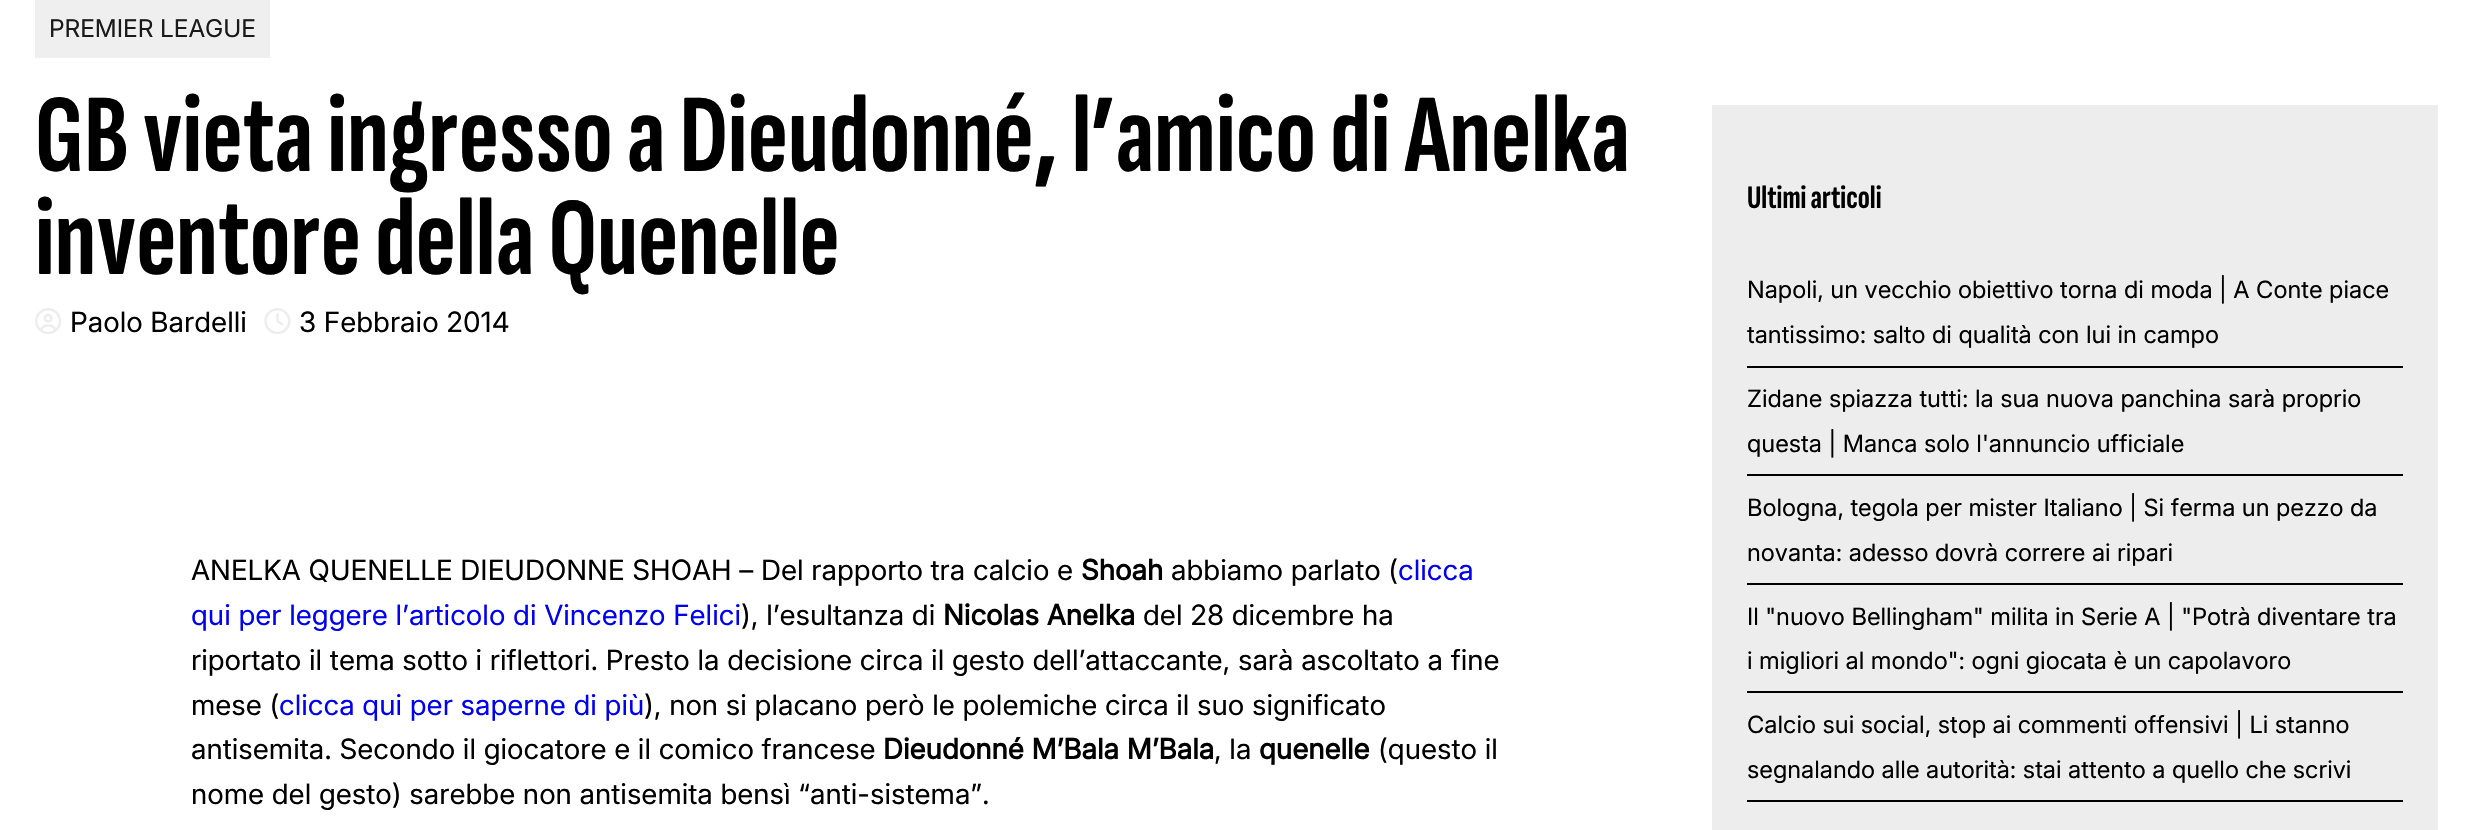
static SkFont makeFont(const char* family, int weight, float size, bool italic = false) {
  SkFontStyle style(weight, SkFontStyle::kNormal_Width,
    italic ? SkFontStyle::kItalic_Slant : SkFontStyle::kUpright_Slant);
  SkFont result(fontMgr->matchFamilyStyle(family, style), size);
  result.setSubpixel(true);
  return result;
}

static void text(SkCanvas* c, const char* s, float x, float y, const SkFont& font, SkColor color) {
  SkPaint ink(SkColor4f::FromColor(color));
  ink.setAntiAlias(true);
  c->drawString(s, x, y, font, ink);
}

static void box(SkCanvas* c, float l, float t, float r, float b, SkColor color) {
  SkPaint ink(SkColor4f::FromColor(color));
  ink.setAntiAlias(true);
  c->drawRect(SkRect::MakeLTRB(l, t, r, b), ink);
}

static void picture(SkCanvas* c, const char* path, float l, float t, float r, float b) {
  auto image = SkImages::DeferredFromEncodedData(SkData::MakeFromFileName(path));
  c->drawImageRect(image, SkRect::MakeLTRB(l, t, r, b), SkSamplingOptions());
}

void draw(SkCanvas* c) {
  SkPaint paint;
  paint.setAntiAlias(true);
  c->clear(0xffffffff);
  box(c, 35, 0, 270, 58, 0xffefefef);
  SkFont face1 = makeFont("Inter", 400, 24.5f);
  text(c, "PREMIER LEAGUE", 49, 37, face1, 0xff1a1a1a);
  SkFont face2 = makeFont("Sofia Sans Extra Condensed", 700, 112);
  text(c, "GB vieta ingresso a Dieudonné, l’amico di Anelka", 35, 171, face2, 0xff000000);
  text(c, "inventore della Quenelle", 35, 274, face2, 0xff000000);
  picture(c, "img_01.png", 35, 308, 61, 334);
  SkFont face3 = makeFont("Inter", 400, 28);
  text(c, "Paolo Bardelli", 70, 332, face3, 0xff000000);
  picture(c, "img_02.png", 264, 308, 291, 334);
  text(c, "3 Febbraio 2014", 299, 332, face3, 0xff000000);
  text(c, "ANELKA QUENELLE DIEUDONNE SHOAH – Del rapporto tra calcio e", 191, 580, face3, 0xff000000);
  SkFont face4 = makeFont("Inter", 700, 28);
  text(c, "Shoah", 1081, 580, face4, 0xff000000);
  text(c, "abbiamo parlato (", 1171, 580, face3, 0xff000000);
  text(c, "clicca", 1398, 580, face3, 0xff0000ee);
  text(c, "qui per leggere l’articolo di Vincenzo Felici", 191, 625, face3, 0xff0000ee);
  text(c, "), l’esultanza di", 741, 625, face3, 0xff000000);
  text(c, "Nicolas Anelka", 943, 625, face4, 0xff000000);
  text(c, "del 28 dicembre ha", 1143, 625, face3, 0xff000000);
  text(c, "riportato il tema sotto i riflettori. Presto la decisione circa il gesto dell’attaccante, sarà ascoltato a fine", 191, 670, face3, 0xff000000);
  text(c, "mese (", 191, 715, face3, 0xff000000);
  text(c, "clicca qui per saperne di più", 279, 715, face3, 0xff0000ee);
  text(c, "), non si placano però le polemiche circa il suo significato", 644, 715, face3, 0xff000000);
  text(c, "antisemita. Secondo il giocatore e il comico francese", 191, 759, face3, 0xff000000);
  text(c, "Dieudonné M’Bala M’Bala", 883, 759, face4, 0xff000000);
  text(c, ", la", 1214, 759, face3, 0xff000000);
  text(c, "quenelle", 1259, 759, face4, 0xff000000);
  text(c, "(questo il", 1378, 759, face3, 0xff000000);
  text(c, "nome del gesto) sarebbe non antisemita bensì “anti-sistema”.", 191, 804, face3, 0xff000000);
  box(c, 1712, 105, 2438, 830, 0xffededed);
  SkFont face5 = makeFont("Sofia Sans Extra Condensed", 700, 33);
  text(c, "Ultimi articoli", 1747, 208, face5, 0xff000000);
  box(c, 1747, 366, 2403, 368, 0xff000000);
  SkFont face6 = makeFont("Inter", 400, 23.8f);
  text(c, "Napoli, un vecchio obiettivo torna di moda | A Conte piace", 1747, 298, face6, 0xff000000);
  text(c, "tantissimo: salto di qualità con lui in campo", 1747, 343, face6, 0xff000000);
  box(c, 1747, 474, 2403, 476, 0xff000000);
  text(c, "Zidane spiazza tutti: la sua nuova panchina sarà proprio", 1747, 407, face6, 0xff000000);
  text(c, "questa | Manca solo l'annuncio ufficiale", 1747, 452, face6, 0xff000000);
  box(c, 1747, 583, 2403, 585, 0xff000000);
  text(c, "Bologna, tegola per mister Italiano | Si ferma un pezzo da", 1747, 516, face6, 0xff000000);
  text(c, "novanta: adesso dovrà correre ai ripari", 1747, 561, face6, 0xff000000);
  box(c, 1747, 691, 2403, 693, 0xff000000);
  text(c, "Il \"nuovo Bellingham\" milita in Serie A | \"Potrà diventare tra", 1747, 625, face6, 0xff000000);
  text(c, "i migliori al mondo\": ogni giocata è un capolavoro", 1747, 669, face6, 0xff000000);
  box(c, 1747, 800, 2403, 802, 0xff000000);
  text(c, "Calcio sui social, stop ai commenti offensivi | Li stanno", 1747, 733, face6, 0xff000000);
  text(c, "segnalando alle autorità: stai attento a quello che scrivi", 1747, 778, face6, 0xff000000);
}
